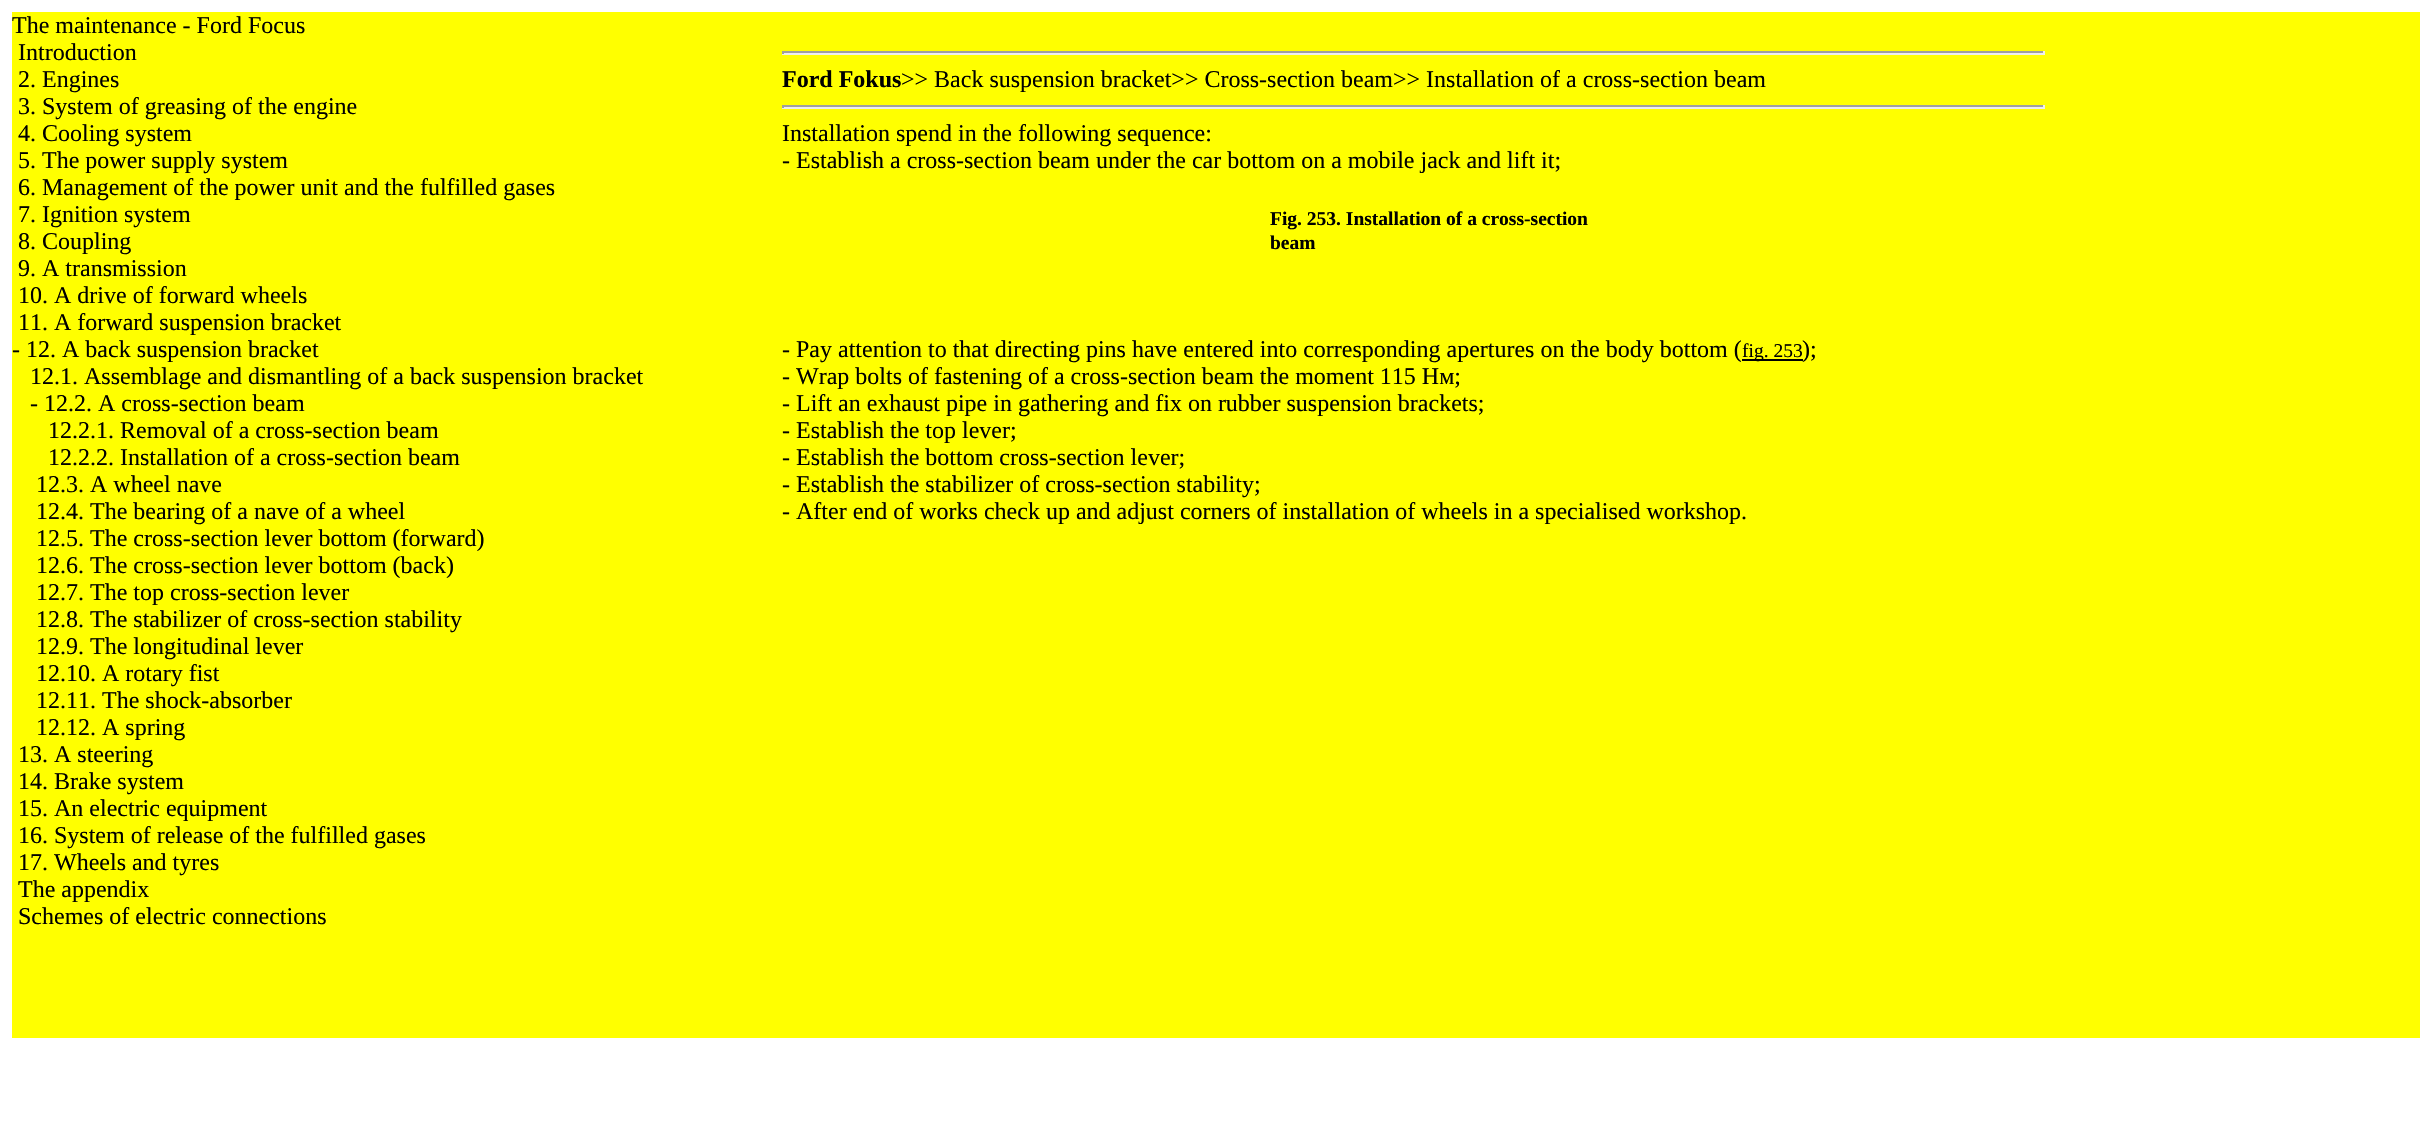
static SkFont makeFont(const char* family, int weight, float size, bool italic = false) {
  SkFontStyle style(weight, SkFontStyle::kNormal_Width,
    italic ? SkFontStyle::kItalic_Slant : SkFontStyle::kUpright_Slant);
  SkFont result(fontMgr->matchFamilyStyle(family, style), size);
  result.setSubpixel(true);
  return result;
}

static void text(SkCanvas* c, const char* s, float x, float y, const SkFont& font, SkColor color) {
  SkPaint ink(SkColor4f::FromColor(color));
  ink.setAntiAlias(true);
  c->drawString(s, x, y, font, ink);
}

static void box(SkCanvas* c, float l, float t, float r, float b, SkColor color) {
  SkPaint ink(SkColor4f::FromColor(color));
  ink.setAntiAlias(true);
  c->drawRect(SkRect::MakeLTRB(l, t, r, b), ink);
}

void draw(SkCanvas* c) {
  SkPaint paint;
  paint.setAntiAlias(true);
  c->clear(0xffffffff);
  box(c, 12, 12, 2420, 1038, 0xffffff00);
  SkFont face1 = makeFont("Liberation Serif", 400, 24);
  text(c, "The maintenance - Ford Focus", 12, 33, face1, 0xff000000);
  text(c, "Introduction", 18, 60, face1, 0xff000000);
  text(c, "2. Engines", 18, 87, face1, 0xff000000);
  text(c, "3. System of greasing of the engine", 18, 114, face1, 0xff000000);
  text(c, "4. Cooling system", 18, 141, face1, 0xff000000);
  text(c, "5. The power supply system", 18, 168, face1, 0xff000000);
  text(c, "6. Management of the power unit and the fulfilled gases", 18, 195, face1, 0xff000000);
  text(c, "7. Ignition system", 18, 222, face1, 0xff000000);
  text(c, "8. Coupling", 18, 249, face1, 0xff000000);
  text(c, "9. A transmission", 18, 276, face1, 0xff000000);
  text(c, "10. A drive of forward wheels", 18, 303, face1, 0xff000000);
  text(c, "11. A forward suspension bracket", 18, 330, face1, 0xff000000);
  text(c, "- 12. A back suspension bracket", 12, 357, face1, 0xff000000);
  text(c, "12.1. Assemblage and dismantling of a back suspension bracket", 30, 384, face1, 0xff000000);
  text(c, "- 12.2. A cross-section beam", 30, 411, face1, 0xff000000);
  text(c, "12.2.1. Removal of a cross-section beam", 48, 438, face1, 0xff000000);
  text(c, "12.2.2. Installation of a cross-section beam", 48, 465, face1, 0xff000000);
  text(c, "12.3. A wheel nave", 36, 492, face1, 0xff000000);
  text(c, "12.4. The bearing of a nave of a wheel", 36, 519, face1, 0xff000000);
  text(c, "12.5. The cross-section lever bottom (forward)", 36, 546, face1, 0xff000000);
  text(c, "12.6. The cross-section lever bottom (back)", 36, 573, face1, 0xff000000);
  text(c, "12.7. The top cross-section lever", 36, 600, face1, 0xff000000);
  text(c, "12.8. The stabilizer of cross-section stability", 36, 627, face1, 0xff000000);
  text(c, "12.9. The longitudinal lever", 36, 654, face1, 0xff000000);
  text(c, "12.10. A rotary fist", 36, 681, face1, 0xff000000);
  text(c, "12.11. The shock-absorber", 36, 708, face1, 0xff000000);
  text(c, "12.12. A spring", 36, 735, face1, 0xff000000);
  text(c, "13. A steering", 18, 762, face1, 0xff000000);
  text(c, "14. Brake system", 18, 789, face1, 0xff000000);
  text(c, "15. An electric equipment", 18, 816, face1, 0xff000000);
  text(c, "16. System of release of the fulfilled gases", 18, 843, face1, 0xff000000);
  text(c, "17. Wheels and tyres", 18, 870, face1, 0xff000000);
  text(c, "The appendix", 18, 897, face1, 0xff000000);
  text(c, "Schemes of electric connections", 18, 924, face1, 0xff000000);
  box(c, 782, 51, 2045, 53, 0xff9f9f9f);
  box(c, 2043, 51, 2045, 54, 0xffeeeeee);
  box(c, 782, 53, 2045, 55, 0xffeeeeee);
  box(c, 782, 51, 784, 54, 0xff9f9f9f);
  SkFont face2 = makeFont("Liberation Serif", 700, 24);
  text(c, "Ford Fokus", 782, 87, face2, 0xff000000);
  text(c, ">> Back suspension bracket>> Cross-section beam>> Installation of a cross-section beam", 901, 87, face1, 0xff000000);
  box(c, 782, 105, 2045, 107, 0xff9f9f9f);
  box(c, 2043, 105, 2045, 108, 0xffeeeeee);
  box(c, 782, 107, 2045, 109, 0xffeeeeee);
  box(c, 782, 105, 784, 108, 0xff9f9f9f);
  text(c, "Installation spend in the following sequence:", 782, 141, face1, 0xff000000);
  text(c, "- Establish a cross-section beam under the car bottom on a mobile jack and lift it;", 782, 168, face1, 0xff000000);
  SkFont face3 = makeFont("Liberation Serif", 700, 19.5f);
  text(c, "Fig. 253. Installation of a cross-section", 1270, 225, face3, 0xff000000);
  text(c, "beam", 1270, 249, face3, 0xff000000);
  text(c, "- Pay attention to that directing pins have entered into corresponding apertures on the body bottom (", 782, 357, face1, 0xff000000);
  box(c, 1742, 359, 1803, 361, 0xff000000);
  SkFont face4 = makeFont("Liberation Serif", 400, 19.5f);
  text(c, "fig. 253", 1742, 357, face4, 0xff000000);
  text(c, ");", 1802, 357, face1, 0xff000000);
  text(c, "- Wrap bolts of fastening of a cross-section beam the moment 115 Нм;", 782, 384, face1, 0xff000000);
  text(c, "- Lift an exhaust pipe in gathering and fix on rubber suspension brackets;", 782, 411, face1, 0xff000000);
  text(c, "- Establish the top lever;", 782, 438, face1, 0xff000000);
  text(c, "- Establish the bottom cross-section lever;", 782, 465, face1, 0xff000000);
  text(c, "- Establish the stabilizer of cross-section stability;", 782, 492, face1, 0xff000000);
  text(c, "- After end of works check up and adjust corners of installation of wheels in a specialised workshop.", 782, 519, face1, 0xff000000);
}
